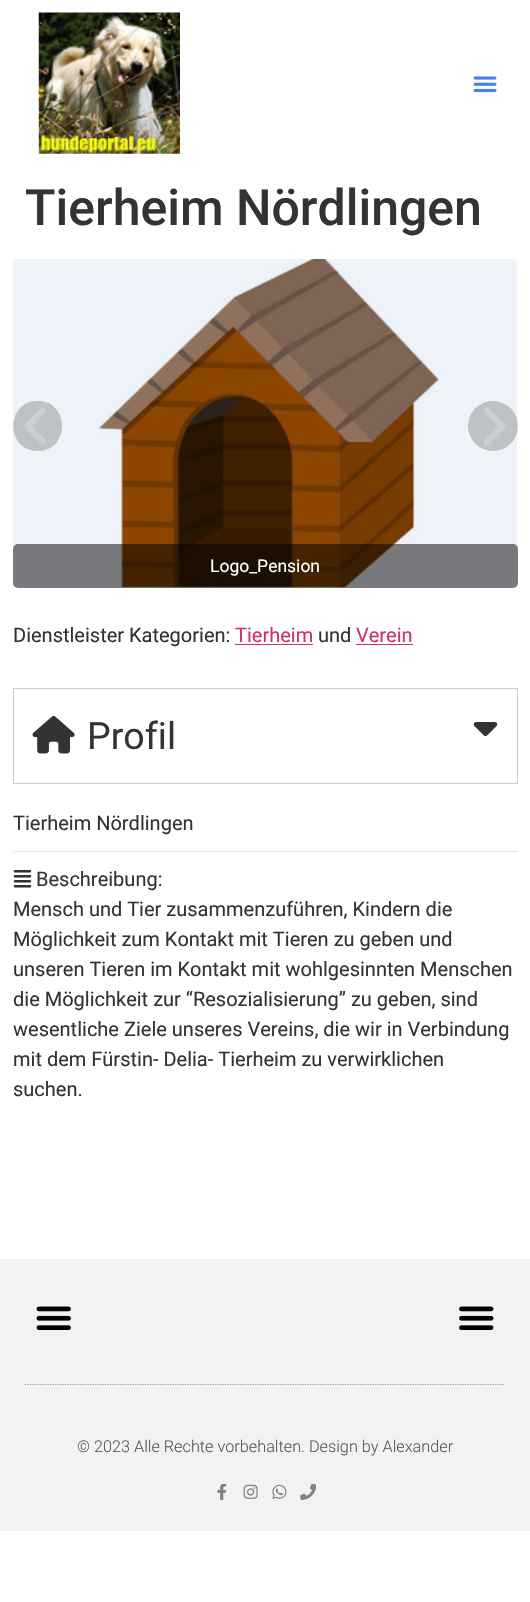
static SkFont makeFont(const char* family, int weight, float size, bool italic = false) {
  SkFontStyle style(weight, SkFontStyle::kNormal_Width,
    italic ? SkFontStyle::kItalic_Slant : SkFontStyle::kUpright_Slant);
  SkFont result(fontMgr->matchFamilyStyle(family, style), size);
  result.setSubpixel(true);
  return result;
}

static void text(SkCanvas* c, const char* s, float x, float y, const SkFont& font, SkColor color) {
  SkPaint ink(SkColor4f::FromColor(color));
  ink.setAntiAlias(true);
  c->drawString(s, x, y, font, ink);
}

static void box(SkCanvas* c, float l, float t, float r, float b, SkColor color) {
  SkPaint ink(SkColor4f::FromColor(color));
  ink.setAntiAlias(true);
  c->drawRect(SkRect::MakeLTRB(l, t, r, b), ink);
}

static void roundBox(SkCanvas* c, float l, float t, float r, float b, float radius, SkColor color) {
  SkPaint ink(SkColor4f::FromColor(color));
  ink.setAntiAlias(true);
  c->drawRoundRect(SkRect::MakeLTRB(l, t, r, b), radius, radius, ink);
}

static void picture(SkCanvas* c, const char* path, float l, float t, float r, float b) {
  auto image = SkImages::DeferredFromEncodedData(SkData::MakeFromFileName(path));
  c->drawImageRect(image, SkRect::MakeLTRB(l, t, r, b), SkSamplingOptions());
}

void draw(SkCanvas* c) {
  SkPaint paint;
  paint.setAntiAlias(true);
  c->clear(0xffffffff);
  picture(c, "img_01.png", 38, 12, 180, 154);
  picture(c, "img_02.png", 473, 76, 497, 93);
  SkFont face1 = makeFont("Roboto", 500, 50);
  text(c, "Tierheim Nördlingen", 25, 225, face1, 0xff333333);
  picture(c, "img_05.png", 12, 258, 518, 588);
  paint.setColor(0xffbec2c7);
  c->drawPath(SkPathBuilder().moveTo(38, 401).cubicTo(5, 401, 5, 451, 38, 451).cubicTo(70, 451, 70, 401, 38, 401).close().detach(), paint);
  picture(c, "img_03.png", 24, 407, 46, 445);
  paint.setColor(0x33000000);
  c->drawCircle(493, 426, 25, paint);
  picture(c, "img_04.png", 484, 407, 506, 445);
  roundBox(c, 13, 544, 518, 588, 5, 0x80000000);
  SkFont face2 = makeFont("Roboto", 400, 17.5f);
  text(c, "Logo_Pension", 210, 572, face2, 0xffffffff);
  SkFont face3 = makeFont("Roboto", 400, 20);
  text(c, "Dienstleister Kategorien:", 13, 642, face3, 0xff333333);
  text(c, "Tierheim", 235, 642, face3, 0xffcc3366);
  box(c, 235, 644, 313, 645, 0xffcc3366);
  text(c, "und", 318, 642, face3, 0xff333333);
  text(c, "Verein", 356, 642, face3, 0xffcc3366);
  box(c, 356, 644, 413, 645, 0xffcc3366);
  paint.setStyle(SkPaint::kStroke_Style);
  paint.setStrokeWidth(1);
  paint.setColor(0xffcccccc);
  c->drawRect(SkRect::MakeLTRB(13.5f, 688.5f, 517.5f, 783.5f), paint);
  picture(c, "img_06.png", 32, 715, 75, 754);
  SkFont face4 = makeFont("Roboto", 400, 37.5f);
  text(c, "Profil", 87, 749, face4, 0xff333333);
  picture(c, "img_07.png", 473, 722, 498, 737);
  box(c, 13, 851, 518, 852, 0xffe1e1e1);
  text(c, "Tierheim Nördlingen", 13, 830, face3, 0xff333333);
  picture(c, "img_08.png", 13, 870, 32, 888);
  text(c, "Beschreibung:", 36, 886, face3, 0xff333333);
  text(c, "Mensch und Tier zusammenzuführen, Kindern die", 13, 916, face3, 0xff333333);
  text(c, "Möglichkeit zum Kontakt mit Tieren zu geben und", 13, 946, face3, 0xff333333);
  text(c, "unseren Tieren im Kontakt mit wohlgesinnten Menschen", 13, 976, face3, 0xff333333);
  text(c, "die Möglichkeit zur “Resozialisierung” zu geben, sind", 13, 1006, face3, 0xff333333);
  text(c, "wesentliche Ziele unseres Vereins, die wir in Verbindung", 13, 1036, face3, 0xff333333);
  text(c, "mit dem Fürstin- Delia- Tierheim zu verwirklichen", 13, 1066, face3, 0xff333333);
  text(c, "suchen.", 13, 1096, face3, 0xff333333);
  box(c, 0, 1259, 530, 1531, 0xfff2f2f2);
  paint.setStrokeWidth(1.2f);
  paint.setColor(0xff9b9b9b);
  paint.setPathEffect(SkDashPathEffect::Make({{1.25f, 1.25f}}, 0));
  c->drawPath(SkPathBuilder().moveTo(25, 1384.5f).lineTo(505, 1384.5f).detach(), paint);
  paint.setPathEffect(nullptr);
  picture(c, "img_09.png", 36, 1306, 71, 1330);
  picture(c, "img_10.png", 459, 1306, 494, 1330);
  SkFont face5 = makeFont("Roboto", 300, 16.25f);
  text(c, "© 2023 Alle Rechte vorbehalten. Design by Alexander", 77, 1452, face5, 0xff54595f);
  picture(c, "img_11.png", 217, 1484, 227, 1500);
  picture(c, "img_12.png", 243, 1484, 258, 1499);
  picture(c, "img_13.png", 272, 1484, 287, 1499);
  picture(c, "img_14.png", 300, 1484, 316, 1500);
}
